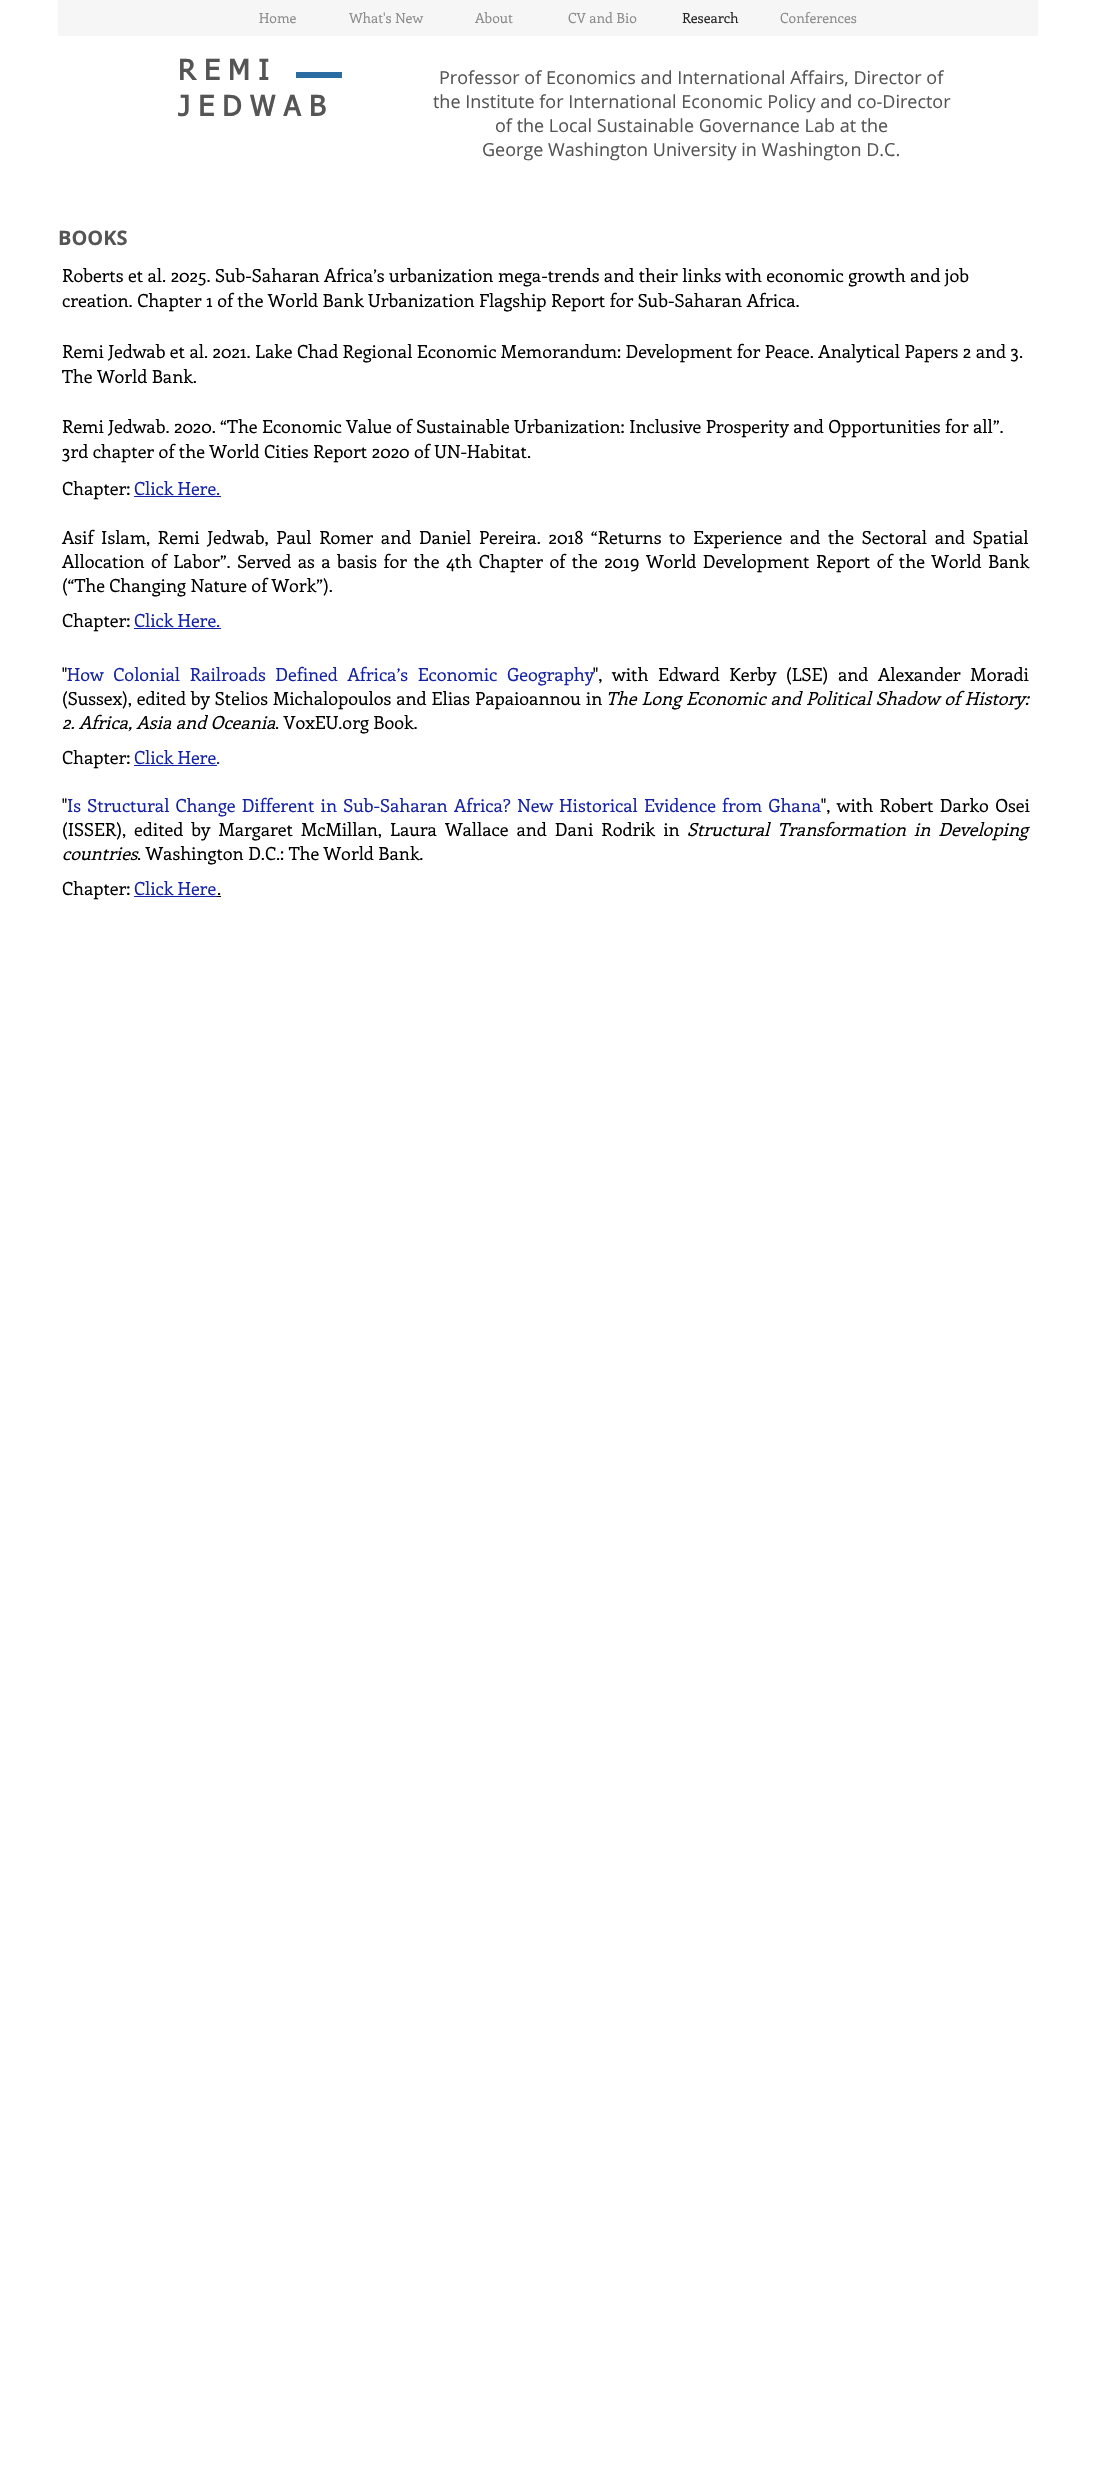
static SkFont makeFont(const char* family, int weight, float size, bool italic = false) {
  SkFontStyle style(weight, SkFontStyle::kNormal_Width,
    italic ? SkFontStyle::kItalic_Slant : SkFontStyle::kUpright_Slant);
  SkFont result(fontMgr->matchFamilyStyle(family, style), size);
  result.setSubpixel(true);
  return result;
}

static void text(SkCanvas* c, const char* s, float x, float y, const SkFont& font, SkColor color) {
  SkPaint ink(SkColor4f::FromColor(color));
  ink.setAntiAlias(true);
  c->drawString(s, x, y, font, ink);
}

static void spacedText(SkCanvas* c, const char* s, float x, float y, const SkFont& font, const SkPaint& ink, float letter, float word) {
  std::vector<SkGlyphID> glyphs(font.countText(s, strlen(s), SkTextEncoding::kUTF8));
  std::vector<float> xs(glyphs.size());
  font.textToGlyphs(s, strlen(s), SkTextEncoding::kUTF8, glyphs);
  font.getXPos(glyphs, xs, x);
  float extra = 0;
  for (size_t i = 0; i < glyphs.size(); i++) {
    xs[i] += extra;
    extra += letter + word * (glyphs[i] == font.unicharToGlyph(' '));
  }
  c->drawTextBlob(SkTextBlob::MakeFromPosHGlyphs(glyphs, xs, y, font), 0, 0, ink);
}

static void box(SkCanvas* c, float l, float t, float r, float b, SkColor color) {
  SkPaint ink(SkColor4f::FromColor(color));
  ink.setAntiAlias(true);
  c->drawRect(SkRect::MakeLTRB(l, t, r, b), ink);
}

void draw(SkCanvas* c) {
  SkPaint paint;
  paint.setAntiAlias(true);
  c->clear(0xffffffff);
  box(c, 58, 0, 1038, 36, 0xfff6f6f6);
  SkFont face1 = makeFont("Enriqueta", 400, 14);
  text(c, "Home", 259, 23, face1, 0xff8b8b8b);
  text(c, "What's New", 349, 23, face1, 0xff8b8b8b);
  text(c, "About", 475, 23, face1, 0xff8b8b8b);
  text(c, "CV and Bio", 568, 23, face1, 0xff8b8b8b);
  text(c, "Research", 682, 23, face1, 0xff242424);
  text(c, "Conferences", 780, 23, face1, 0xff8b8b8b);
  SkFont face2 = makeFont("tahoma", 700, 28);
  paint.setColor(0xff555555);
  spacedText(c, "REMI", 178, 80, face2, paint, 8.5f, 0);
  spacedText(c, "JEDWAB", 178, 116, face2, paint, 8.5f, 0);
  SkFont face3 = makeFont("Open Sans", 400, 18);
  text(c, "Professor of Economics and International Affairs, Director of", 439, 84, face3, 0xff555555);
  text(c, "the Institute for International Economic Policy and co-Director", 433, 108, face3, 0xff555555);
  text(c, "of the Local Sustainable Governance Lab at the", 495, 132, face3, 0xff555555);
  text(c, "George Washington University in Washington D.C.", 482, 156, face3, 0xff555555);
  box(c, 296, 72, 342, 78, 0xff2b6ca3);
  SkFont face4 = makeFont("Open Sans", 700, 20);
  text(c, "BOOKS", 58, 245, face4, 0xff555555);
  SkFont face5 = makeFont("Enriqueta", 400, 18);
  text(c, "Roberts et al. 2025. Sub-Saharan Africa’s urbanization mega-trends and their links with economic growth and job", 62, 282, face5, 0xff000000);
  text(c, "creation. Chapter 1 of the World Bank Urbanization Flagship Report for Sub-Saharan Africa.", 62, 307, face5, 0xff000000);
  text(c, "Remi Jedwab et al. 2021. Lake Chad Regional Economic Memorandum: Development for Peace. Analytical Papers 2 and 3.", 62, 358, face5, 0xff000000);
  text(c, "The World Bank.", 62, 383, face5, 0xff000000);
  text(c, "Remi Jedwab. 2020. “The Economic Value of Sustainable Urbanization: Inclusive Prosperity and Opportunities for all”.", 62, 433, face5, 0xff000000);
  text(c, "3rd chapter of the World Cities Report 2020 of UN-Habitat.", 62, 458, face5, 0xff000000);
  text(c, "Chapter:", 62, 495, face5, 0xff000000);
  text(c, "Click Here.", 134, 495, face5, 0xff1422a3);
  box(c, 134, 496, 221, 497, 0xff1422a3);
  paint.setColor(0xff000000);
  spacedText(c, "Asif Islam, Remi Jedwab, Paul Romer and Daniel Pereira. 2018 “Returns to Experience and the Sectoral and Spatial", 62, 544, face5, paint, 0, 3.25f);
  spacedText(c, "Allocation of Labor”. Served as a basis for the 4th Chapter of the 2019 World Development Report of the World Bank", 62, 568, face5, paint, 0, 2);
  text(c, "(“The Changing Nature of Work”).", 62, 592, face5, 0xff000000);
  text(c, "Chapter:", 62, 627, face5, 0xff000000);
  box(c, 134, 628, 221, 629, 0xff1422a3);
  text(c, "Click Here.", 134, 627, face5, 0xff1422a3);
  text(c, "\"", 62, 681, face5, 0xff000000);
  paint.setColor(0xff1422a3);
  spacedText(c, "How Colonial Railroads Defined Africa’s Economic Geography", 67, 681, face5, paint, 0, 5.25f);
  paint.setColor(0xff000000);
  spacedText(c, "\", with Edward Kerby (LSE) and Alexander Moradi", 593, 681, face5, paint, 0, 5.25f);
  spacedText(c, "(Sussex), edited by Stelios Michalopoulos and Elias Papaioannou in", 62, 705, face5, paint, 0, 0.5f);
  SkFont face6 = makeFont("Enriqueta", 400, 18, true);
  spacedText(c, "The Long Economic and Political Shadow of History:", 606, 705, face6, paint, 0, 0.5f);
  text(c, "2. Africa, Asia and Oceania", 62, 729, face6, 0xff000000);
  text(c, ". VoxEU.org Book.", 275, 729, face5, 0xff000000);
  text(c, "Chapter:", 62, 764, face5, 0xff000000);
  box(c, 134, 765, 217, 766, 0xff1422a3);
  text(c, "Click Here.", 134, 764, face5, 0xff1422a3);
  text(c, "\"", 62, 812, face5, 0xff000000);
  paint.setColor(0xff1422a3);
  spacedText(c, "Is Structural Change Different in Sub-Saharan Africa? New Historical Evidence from Ghana", 67, 812, face5, paint, 0, 1.75f);
  paint.setColor(0xff000000);
  spacedText(c, "\", with Robert Darko Osei", 821, 812, face5, paint, 0, 2);
  spacedText(c, "(ISSER), edited by Margaret McMillan, Laura Wallace and Dani Rodrik in", 62, 836, face5, paint, 0, 3.6f);
  spacedText(c, "Structural Transformation in Developing", 687, 836, face6, paint, 0, 3.6f);
  text(c, "countries", 62, 860, face6, 0xff000000);
  text(c, ". Washington D.C.: The World Bank.", 137, 860, face5, 0xff000000);
  text(c, "Chapter:", 62, 895, face5, 0xff000000);
  text(c, "Click Here", 134, 895, face5, 0xff1422a3);
  text(c, ".", 217, 895, face5, 0xff000000);
  box(c, 134, 896, 217, 897, 0xff1422a3);
  box(c, 217, 896, 221, 897, 0xff000000);
}
